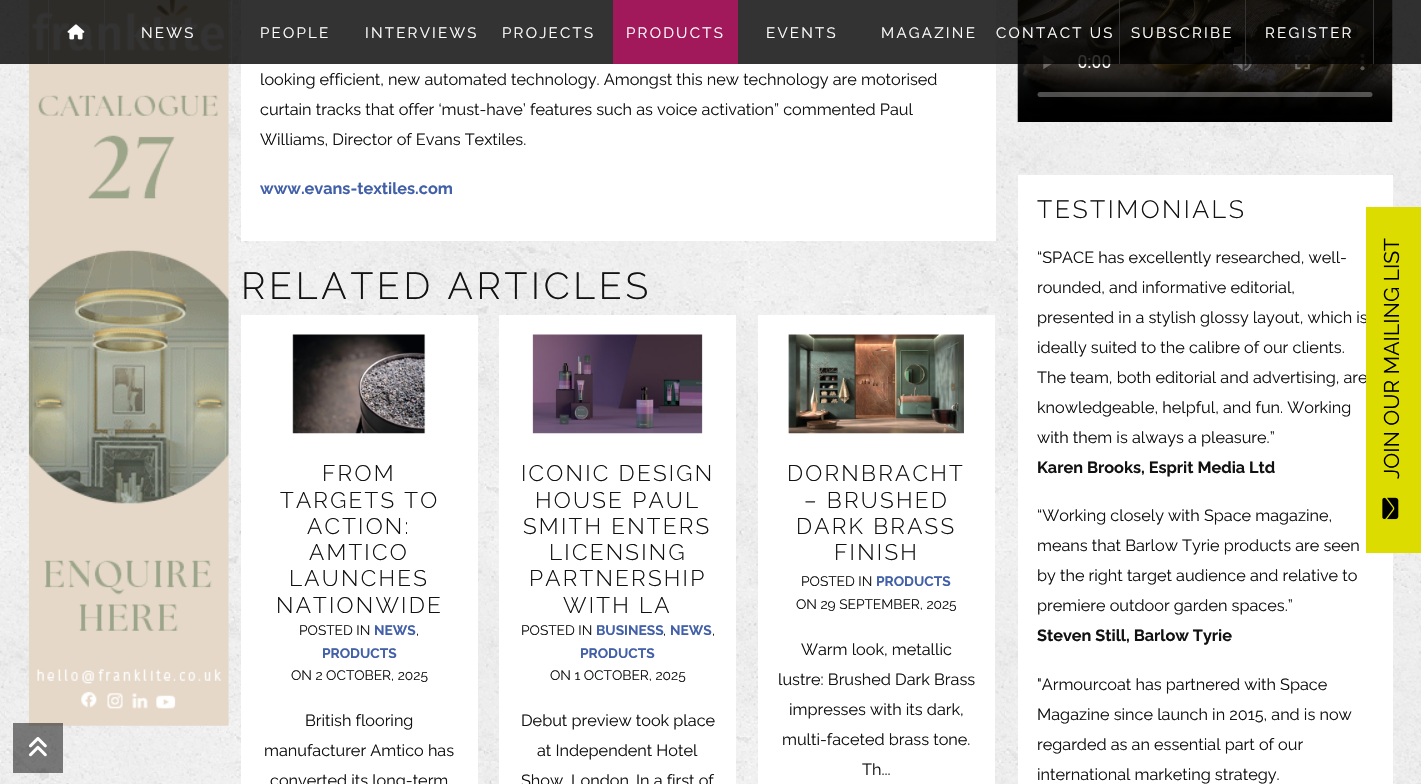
static SkFont makeFont(const char* family, int weight, float size, bool italic = false) {
  SkFontStyle style(weight, SkFontStyle::kNormal_Width,
    italic ? SkFontStyle::kItalic_Slant : SkFontStyle::kUpright_Slant);
  SkFont result(fontMgr->matchFamilyStyle(family, style), size);
  result.setSubpixel(true);
  return result;
}

static void text(SkCanvas* c, const char* s, float x, float y, const SkFont& font, SkColor color) {
  SkPaint ink(SkColor4f::FromColor(color));
  ink.setAntiAlias(true);
  c->drawString(s, x, y, font, ink);
}

static void spacedText(SkCanvas* c, const char* s, float x, float y, const SkFont& font, const SkPaint& ink, float letter, float word) {
  std::vector<SkGlyphID> glyphs(font.countText(s, strlen(s), SkTextEncoding::kUTF8));
  std::vector<float> xs(glyphs.size());
  font.textToGlyphs(s, strlen(s), SkTextEncoding::kUTF8, glyphs);
  font.getXPos(glyphs, xs, x);
  float extra = 0;
  for (size_t i = 0; i < glyphs.size(); i++) {
    xs[i] += extra;
    extra += letter + word * (glyphs[i] == font.unicharToGlyph(' '));
  }
  c->drawTextBlob(SkTextBlob::MakeFromPosHGlyphs(glyphs, xs, y, font), 0, 0, ink);
}

static void box(SkCanvas* c, float l, float t, float r, float b, SkColor color) {
  SkPaint ink(SkColor4f::FromColor(color));
  ink.setAntiAlias(true);
  c->drawRect(SkRect::MakeLTRB(l, t, r, b), ink);
}

static void picture(SkCanvas* c, const char* path, float l, float t, float r, float b) {
  auto image = SkImages::DeferredFromEncodedData(SkData::MakeFromFileName(path));
  c->drawImageRect(image, SkRect::MakeLTRB(l, t, r, b), SkSamplingOptions());
}

void draw(SkCanvas* c) {
  SkPaint paint;
  paint.setAntiAlias(true);
  c->clear(0xffffffff);
  picture(c, "img_01.png", 0, 0, 1421, 784);
  picture(c, "img_03.png", 28, 0, 229, 726);
  box(c, 241, 0, 996, 241, 0xffffffff);
  picture(c, "img_07.png", 1017, 0, 1393, 122);
  box(c, 0, 0, 1421, 64, 0xcc000000);
  box(c, 48, 0, 49, 64, 0xff333333);
  picture(c, "img_02.png", 67, 24, 85, 40);
  box(c, 104, 0, 105, 64, 0xff333333);
  SkFont face1 = makeFont("Raleway", 400, 15);
  paint.setColor(0xffffffff);
  spacedText(c, "NEWS", 141, 38, face1, paint, 2.25f, 0);
  box(c, 231, 0, 232, 64, 0xff333333);
  spacedText(c, "PEOPLE", 260, 38, face1, paint, 2.25f, 0);
  spacedText(c, "INTERVIEWS", 365, 38, face1, paint, 2.25f, 0);
  spacedText(c, "PROJECTS", 502, 38, face1, paint, 2.25f, 0);
  box(c, 613, 0, 738, 64, 0xffa2195b);
  spacedText(c, "PRODUCTS", 626, 38, face1, paint, 2.25f, 0);
  spacedText(c, "EVENTS", 766, 38, face1, paint, 2.25f, 0);
  spacedText(c, "MAGAZINE", 881, 38, face1, paint, 2.25f, 0);
  spacedText(c, "CONTACT US", 996, 38, face1, paint, 2.25f, 0);
  box(c, 1119, 0, 1120, 64, 0xff333333);
  spacedText(c, "SUBSCRIBE", 1131, 38, face1, paint, 2.25f, 0);
  box(c, 1373, 0, 1374, 64, 0xff333333);
  box(c, 1245, 0, 1246, 64, 0xff333333);
  spacedText(c, "REGISTER", 1265, 38, face1, paint, 2.25f, 0);
  SkFont face2 = makeFont("Raleway", 400, 16.25f);
  text(c, "looking efficient, new automated technology. Amongst this new technology are motorised", 260, 85, face2, 0xff121212);
  text(c, "curtain tracks that offer ‘must-have’ features such as voice activation” commented Paul", 260, 115, face2, 0xff121212);
  text(c, "Williams, Director of Evans Textiles.", 260, 145, face2, 0xff121212);
  SkFont face3 = makeFont("Raleway", 700, 16.25f);
  text(c, "www.evans-textiles.com", 260, 194, face3, 0xff4260a8);
  SkFont face4 = makeFont("Raleway", 300, 37.5f);
  paint.setColor(0xff121212);
  spacedText(c, "RELATED ARTICLES", 241, 299, face4, paint, 3.75f, 0);
  box(c, 241, 315, 478, 784, 0xffffffff);
  picture(c, "img_04.png", 292, 334, 426, 434);
  SkFont face5 = makeFont("Raleway", 300, 22.5f);
  spacedText(c, "FROM", 322, 481, face5, paint, 2.25f, 0);
  spacedText(c, "TARGETS TO", 280, 508, face5, paint, 2.25f, 0);
  spacedText(c, "ACTION:", 307, 534, face5, paint, 2.25f, 0);
  spacedText(c, "AMTICO", 309, 560, face5, paint, 2.25f, 0);
  spacedText(c, "LAUNCHES", 289, 586, face5, paint, 2.25f, 0);
  spacedText(c, "NATIONWIDE", 276, 613, face5, paint, 2.25f, 0);
  SkFont face6 = makeFont("Raleway", 400, 13.75f);
  text(c, "POSTED IN", 299, 635, face6, 0xff121212);
  SkFont face7 = makeFont("Raleway", 700, 13.75f);
  text(c, "NEWS", 374, 635, face7, 0xff4260a8);
  text(c, ",", 416, 635, face6, 0xff121212);
  text(c, "PRODUCTS", 322, 658, face7, 0xff4260a8);
  text(c, "ON 2 OCTOBER, 2025", 291, 680, face6, 0xff121212);
  text(c, "British flooring", 305, 726, face2, 0xff121212);
  text(c, "manufacturer Amtico has", 264, 756, face2, 0xff121212);
  text(c, "converted its long-term", 270, 786, face2, 0xff121212);
  box(c, 499, 315, 736, 784, 0xffffffff);
  picture(c, "img_05.png", 532, 334, 703, 434);
  spacedText(c, "ICONIC DESIGN", 521, 481, face5, paint, 2.25f, 0);
  spacedText(c, "HOUSE PAUL", 535, 508, face5, paint, 2.25f, 0);
  spacedText(c, "SMITH ENTERS", 523, 534, face5, paint, 2.25f, 0);
  spacedText(c, "LICENSING", 549, 560, face5, paint, 2.25f, 0);
  spacedText(c, "PARTNERSHIP", 529, 586, face5, paint, 2.25f, 0);
  spacedText(c, "WITH LA", 563, 613, face5, paint, 2.25f, 0);
  text(c, "POSTED IN", 521, 635, face6, 0xff121212);
  text(c, "BUSINESS", 596, 635, face7, 0xff4260a8);
  text(c, ",", 663, 635, face6, 0xff121212);
  text(c, "NEWS", 670, 635, face7, 0xff4260a8);
  text(c, ",", 712, 635, face6, 0xff121212);
  text(c, "PRODUCTS", 580, 658, face7, 0xff4260a8);
  text(c, "ON 1 OCTOBER, 2025", 550, 680, face6, 0xff121212);
  text(c, "Debut preview took place", 521, 726, face2, 0xff121212);
  text(c, "at Independent Hotel", 537, 756, face2, 0xff121212);
  text(c, "Show, London", 521, 786, face2, 0xff121212);
  text(c, "In a first of", 636, 786, face2, 0xff121212);
  box(c, 758, 315, 995, 784, 0xffffffff);
  picture(c, "img_06.png", 788, 334, 964, 434);
  spacedText(c, "DORNBRACHT", 787, 481, face5, paint, 2.25f, 0);
  spacedText(c, "– BRUSHED", 804, 508, face5, paint, 2.25f, 0);
  spacedText(c, "DARK BRASS", 796, 534, face5, paint, 2.25f, 0);
  spacedText(c, "FINISH", 834, 560, face5, paint, 2.25f, 0);
  text(c, "POSTED IN", 801, 586, face6, 0xff121212);
  text(c, "PRODUCTS", 876, 586, face7, 0xff4260a8);
  text(c, "ON 29 SEPTEMBER, 2025", 796, 609, face6, 0xff121212);
  text(c, "Warm look, metallic", 801, 655, face2, 0xff121212);
  text(c, "lustre: Brushed Dark Brass", 778, 685, face2, 0xff121212);
  text(c, "impresses with its dark,", 789, 715, face2, 0xff121212);
  text(c, "multi-faceted brass tone.", 782, 745, face2, 0xff121212);
  text(c, "Th...", 862, 775, face2, 0xff121212);
  box(c, 1018, 175, 1393, 784, 0xffffffff);
  SkFont face8 = makeFont("Raleway", 300, 25);
  spacedText(c, "TESTIMONIALS", 1037, 218, face8, paint, 2.5f, 0);
  text(c, "“SPACE has excellently researched, well-", 1037, 263, face2, 0xff121212);
  text(c, "rounded, and informative editorial,", 1037, 293, face2, 0xff121212);
  text(c, "presented in a stylish glossy layout, which is", 1037, 323, face2, 0xff121212);
  text(c, "ideally suited to the calibre of our clients.", 1037, 353, face2, 0xff121212);
  text(c, "The team, both editorial and advertising, are", 1037, 383, face2, 0xff121212);
  text(c, "knowledgeable, helpful, and fun. Working", 1037, 413, face2, 0xff121212);
  text(c, "with them is always a pleasure.”", 1037, 443, face2, 0xff121212);
  text(c, "Karen Brooks, Esprit Media Ltd", 1037, 473, face3, 0xff121212);
  text(c, "“Working closely with Space magazine,", 1037, 521, face2, 0xff121212);
  text(c, "means that Barlow Tyrie products are seen", 1037, 551, face2, 0xff121212);
  text(c, "by the right target audience and relative to", 1037, 581, face2, 0xff121212);
  text(c, "premiere outdoor garden spaces.”", 1037, 611, face2, 0xff121212);
  text(c, "Steven Still, Barlow Tyrie", 1037, 641, face3, 0xff121212);
  text(c, "\"Armourcoat has partnered with Space", 1037, 690, face2, 0xff121212);
  text(c, "Magazine since launch in 2015, and is now", 1037, 720, face2, 0xff121212);
  text(c, "regarded as an essential part of our", 1037, 750, face2, 0xff121212);
  text(c, "international marketing strategy.", 1037, 780, face2, 0xff121212);
  box(c, 1366, 207, 1421, 553, 0xffdddc00);
  SkFont face9 = makeFont("Raleway", 400, 21.25f);
  c->save();
  c->rotate(-90, 1399, 479);
  text(c, "JOIN OUR MAILING LIST", 1399, 479, face9, 0xff000000);
  c->restore();
  picture(c, "img_08.png", 1382, 497, 1399, 520);
  box(c, 13, 723, 63, 773, 0x80000000);
  picture(c, "img_09.png", 29, 737, 47, 757);
}
